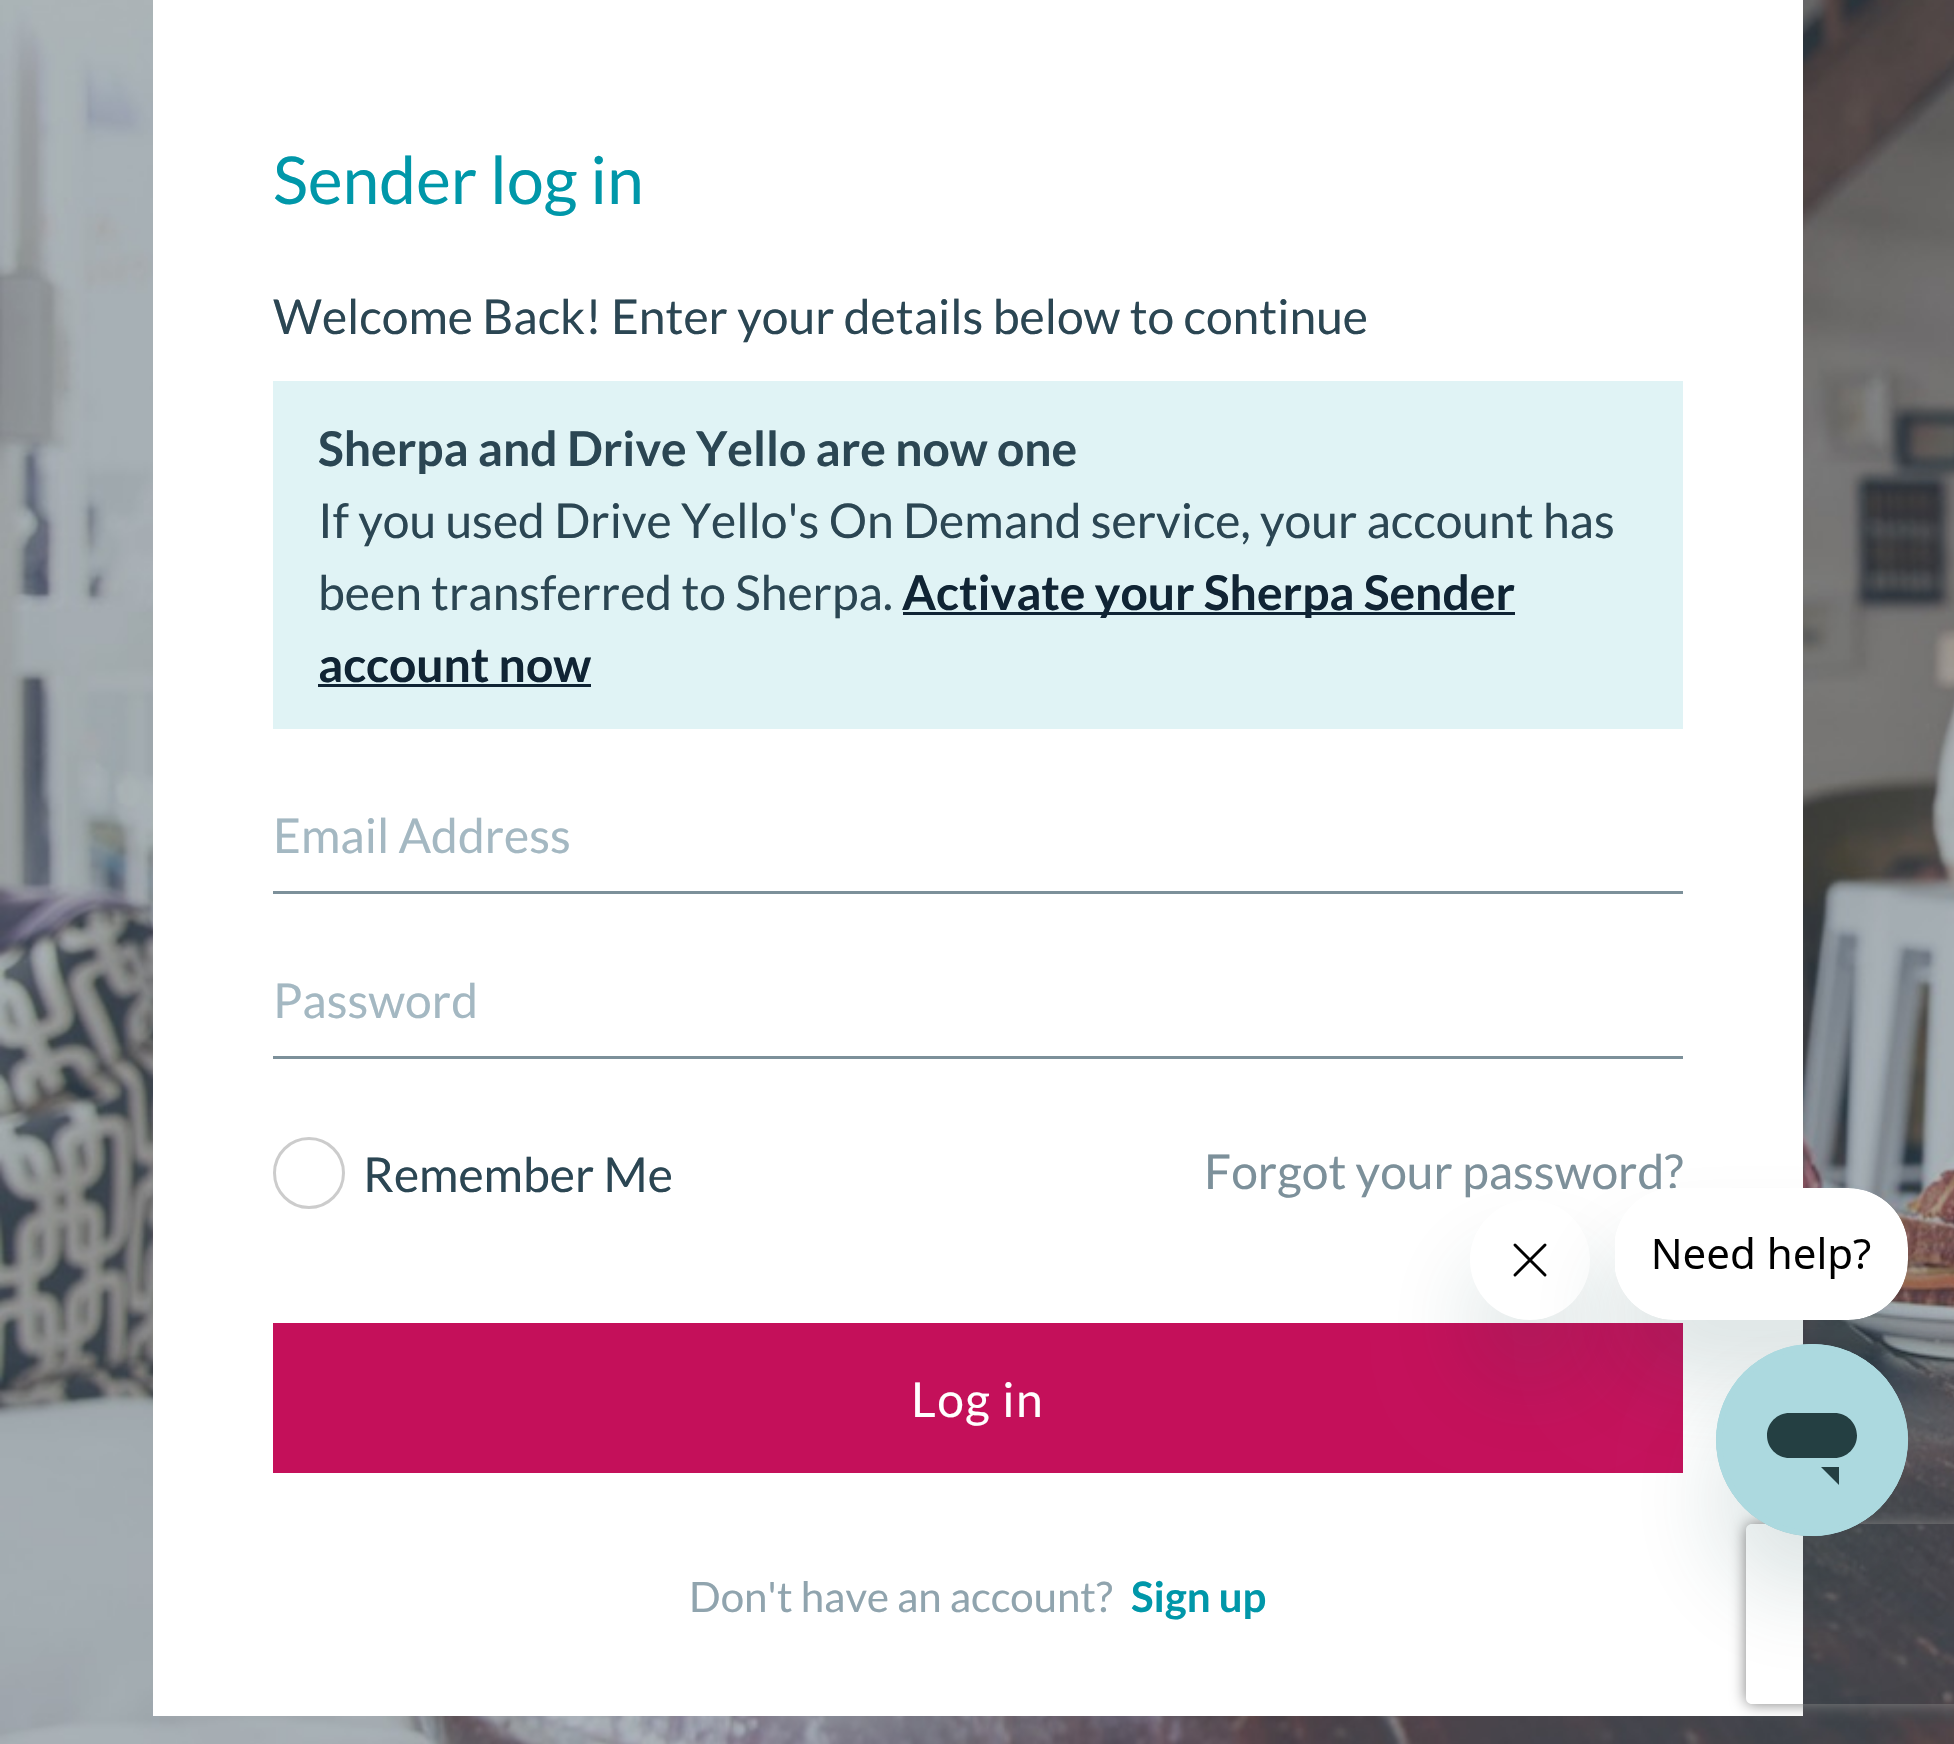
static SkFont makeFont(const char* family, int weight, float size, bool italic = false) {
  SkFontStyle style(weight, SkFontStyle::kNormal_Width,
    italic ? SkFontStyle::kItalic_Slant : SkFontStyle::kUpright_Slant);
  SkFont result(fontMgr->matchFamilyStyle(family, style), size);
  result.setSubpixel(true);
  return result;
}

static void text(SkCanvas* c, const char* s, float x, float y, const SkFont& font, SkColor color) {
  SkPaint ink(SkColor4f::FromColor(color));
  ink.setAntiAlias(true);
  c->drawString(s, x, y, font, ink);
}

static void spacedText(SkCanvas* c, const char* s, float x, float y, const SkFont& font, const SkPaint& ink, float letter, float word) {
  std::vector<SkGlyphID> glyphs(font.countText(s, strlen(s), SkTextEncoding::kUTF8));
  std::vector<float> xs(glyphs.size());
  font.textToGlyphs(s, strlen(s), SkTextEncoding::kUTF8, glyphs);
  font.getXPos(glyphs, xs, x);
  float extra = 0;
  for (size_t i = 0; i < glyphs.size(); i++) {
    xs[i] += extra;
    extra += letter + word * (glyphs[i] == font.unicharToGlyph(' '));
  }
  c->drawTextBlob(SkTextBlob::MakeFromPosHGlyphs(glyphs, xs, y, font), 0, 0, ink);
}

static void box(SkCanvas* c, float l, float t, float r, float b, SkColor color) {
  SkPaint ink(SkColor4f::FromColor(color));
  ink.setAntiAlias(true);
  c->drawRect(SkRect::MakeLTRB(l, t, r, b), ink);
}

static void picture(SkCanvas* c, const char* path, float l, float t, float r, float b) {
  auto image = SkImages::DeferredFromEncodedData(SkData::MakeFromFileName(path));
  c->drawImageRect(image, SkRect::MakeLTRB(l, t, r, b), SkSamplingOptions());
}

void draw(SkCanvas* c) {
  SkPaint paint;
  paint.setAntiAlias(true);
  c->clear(0xffffffff);
  picture(c, "img_01.png", 0, 0, 1954, 1744);
  box(c, 153, 0, 1803, 1716, 0xffffffff);
  SkFont face1 = makeFont("Lato", 400, 66);
  text(c, "Sender log in", 273, 204, face1, 0xff0097a9);
  SkFont face2 = makeFont("Lato", 400, 48);
  text(c, "Welcome Back! Enter your details below to continue", 273, 334, face2, 0xff2b4653);
  box(c, 273, 381, 1683, 729, 0xffe0f3f5);
  SkFont face3 = makeFont("Lato", 700, 48);
  text(c, "Sherpa and Drive Yello are now one", 318, 466, face3, 0xff2b4653);
  text(c, "If you used Drive Yello's On Demand service, your account has", 318, 538, face2, 0xff2b4653);
  text(c, "been transferred to Sherpa.", 318, 610, face2, 0xff2b4653);
  box(c, 903, 612, 1515, 615, 0xff102434);
  text(c, "Activate your Sherpa Sender", 902, 610, face3, 0xff102434);
  text(c, "account now", 318, 682, face3, 0xff102434);
  box(c, 318, 684, 591, 687, 0xff102434);
  box(c, 273, 891, 1683, 894, 0xff7c909a);
  text(c, "Email Address", 273, 853, face2, 0xffa4b8c2);
  box(c, 273, 1056, 1683, 1059, 0xff7c909a);
  text(c, "Password", 273, 1018, face2, 0xffa4b8c2);
  paint.setStyle(SkPaint::kStroke_Style);
  paint.setStrokeWidth(3);
  paint.setColor(0xffcccccc);
  c->drawCircle(309, 1173, 34.5f, paint);
  text(c, "Remember Me", 363, 1192, face2, 0xff2b4653);
  text(c, "Forgot your password?", 1204, 1189, face2, 0xff7c909a);
  box(c, 273, 1323, 1683, 1473, 0xffc4105a);
  paint.setStyle(SkPaint::kFill_Style);
  paint.setColor(0xffffffff);
  spacedText(c, "Log in", 911, 1417, face2, paint, 1.5f, 0);
  SkFont face4 = makeFont("Lato", 400, 42);
  text(c, "Don't have an account?", 689, 1612, face4, 0xff90a4ae);
  SkFont face5 = makeFont("Lato", 700, 42);
  text(c, "Sign up", 1131, 1612, face5, 0xff0097a9);
  c->save();
  c->clipPath(SkPathBuilder(SkPathFillType::kEvenOdd).moveTo(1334, 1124).lineTo(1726, 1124).lineTo(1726, 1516).lineTo(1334, 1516).close().moveTo(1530, 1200).cubicTo(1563, 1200, 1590, 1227, 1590, 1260).cubicTo(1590, 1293, 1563, 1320, 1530, 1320).cubicTo(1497, 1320, 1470, 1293, 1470, 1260).cubicTo(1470, 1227, 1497, 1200, 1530, 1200).close().detach(), true);
  paint.setColor(0x2617494d);
  paint.setMaskFilter(SkMaskFilter::MakeBlur(kNormal_SkBlurStyle, 45));
  c->drawRoundRect(SkRect::MakeLTRB(1470, 1260, 1590, 1380), 60, 60, paint);
  paint.setMaskFilter(nullptr);
  c->restore();
  picture(c, "img_03.png", 1513, 1243, 1547, 1319);
  paint.setMaskFilter(SkMaskFilter::MakeBlur(kNormal_SkBlurStyle, 45));
  c->drawRoundRect(SkRect::MakeLTRB(1614, 1248, 1908, 1380), 60, 60, paint);
  paint.setMaskFilter(nullptr);
  picture(c, "img_02.png", 1615, 1188, 1908, 1320);
  paint.setMaskFilter(SkMaskFilter::MakeBlur(kNormal_SkBlurStyle, 45));
  c->drawRoundRect(SkRect::MakeLTRB(1716, 1404, 1908, 1596), 96, 96, paint);
  paint.setMaskFilter(nullptr);
  c->save();
  c->clipPath(SkPathBuilder(SkPathFillType::kEvenOdd).moveTo(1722, 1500).lineTo(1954, 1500).lineTo(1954, 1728).lineTo(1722, 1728).close().moveTo(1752, 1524).lineTo(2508, 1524).cubicTo(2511.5f, 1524, 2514, 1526.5f, 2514, 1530).lineTo(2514, 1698).cubicTo(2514, 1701.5f, 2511.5f, 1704, 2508, 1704).lineTo(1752, 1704).cubicTo(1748.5f, 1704, 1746, 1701.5f, 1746, 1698).lineTo(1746, 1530).cubicTo(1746, 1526.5f, 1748.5f, 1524, 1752, 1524).close().detach(), true);
  paint.setColor(0xff808080);
  paint.setMaskFilter(SkMaskFilter::MakeBlur(kNormal_SkBlurStyle, 7.5f));
  c->drawRoundRect(SkRect::MakeLTRB(1746, 1524, 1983, 1704), 6, 6, paint);
  paint.setMaskFilter(nullptr);
  c->restore();
  picture(c, "img_04.png", 1716, 1344, 1908, 1536);
}
